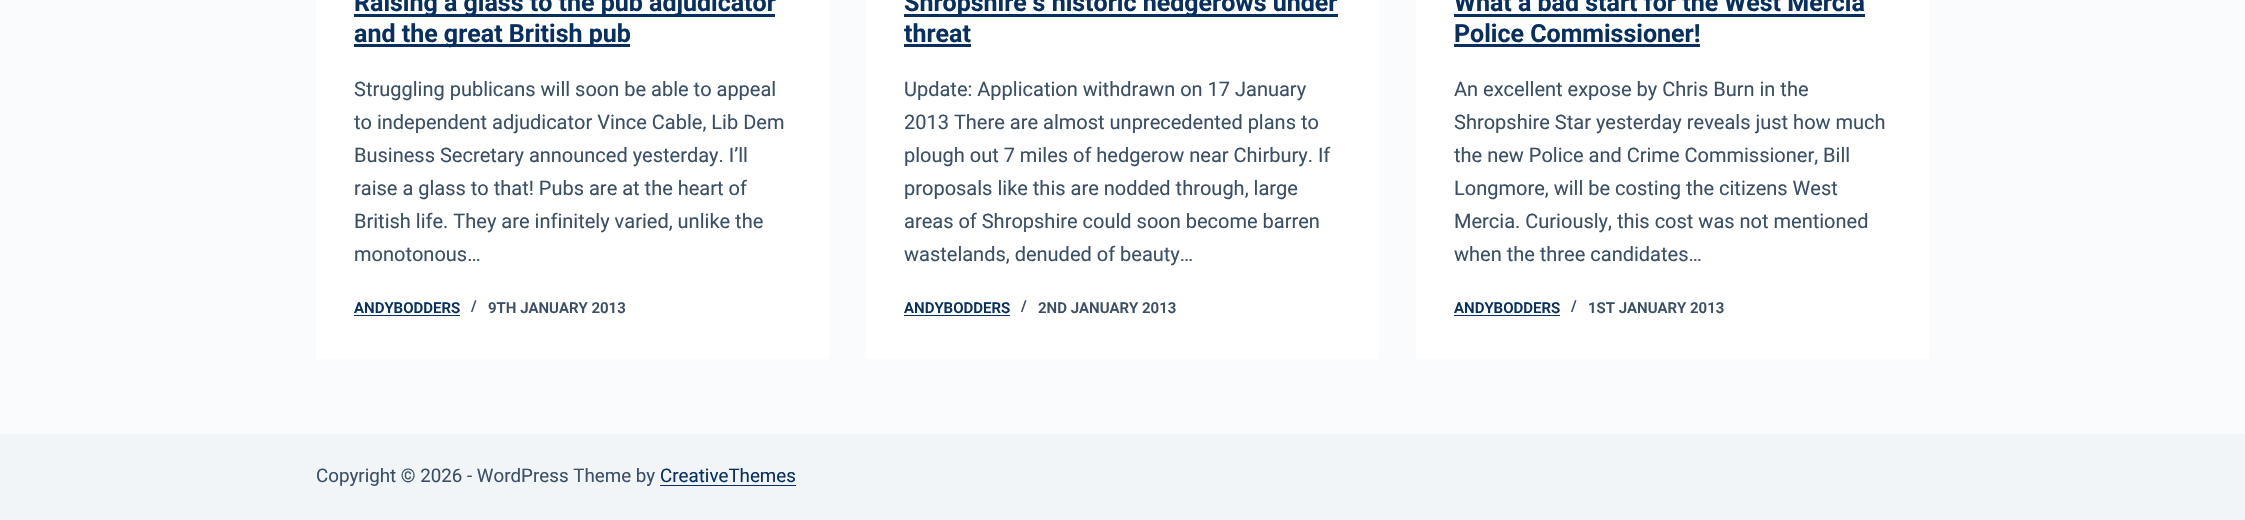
static SkFont makeFont(const char* family, int weight, float size, bool italic = false) {
  SkFontStyle style(weight, SkFontStyle::kNormal_Width,
    italic ? SkFontStyle::kItalic_Slant : SkFontStyle::kUpright_Slant);
  SkFont result(fontMgr->matchFamilyStyle(family, style), size);
  result.setSubpixel(true);
  return result;
}

static void text(SkCanvas* c, const char* s, float x, float y, const SkFont& font, SkColor color) {
  SkPaint ink(SkColor4f::FromColor(color));
  ink.setAntiAlias(true);
  c->drawString(s, x, y, font, ink);
}

static void box(SkCanvas* c, float l, float t, float r, float b, SkColor color) {
  SkPaint ink(SkColor4f::FromColor(color));
  ink.setAntiAlias(true);
  c->drawRect(SkRect::MakeLTRB(l, t, r, b), ink);
}

void draw(SkCanvas* c) {
  SkPaint paint;
  paint.setAntiAlias(true);
  c->clear(0xfffafbfc);
  box(c, 316, 0, 829, 359, 0xffffffff);
  box(c, 354, 14, 775, 17, 0xff072f5f);
  SkFont face1 = makeFont("Roboto", 700, 25);
  text(c, "Raising a glass to the pub adjudicator", 354, 11, face1, 0xff072f5f);
  box(c, 354, 44, 630, 47, 0xff072f5f);
  text(c, "and the great British pub", 354, 42, face1, 0xff072f5f);
  SkFont face2 = makeFont("Roboto", 400, 20);
  text(c, "Struggling publicans will soon be able to appeal", 354, 96, face2, 0xff3a4f66);
  text(c, "to independent adjudicator Vince Cable, Lib Dem", 354, 129, face2, 0xff3a4f66);
  text(c, "Business Secretary announced yesterday. I’ll", 354, 162, face2, 0xff3a4f66);
  text(c, "raise a glass to that! Pubs are at the heart of", 354, 195, face2, 0xff3a4f66);
  text(c, "British life. They are infinitely varied, unlike the", 354, 228, face2, 0xff3a4f66);
  text(c, "monotonous…", 354, 261, face2, 0xff3a4f66);
  SkFont face3 = makeFont("Roboto", 600, 15);
  text(c, "ANDYBODDERS", 354, 313, face3, 0xff072f5f);
  box(c, 354, 315, 460, 316, 0xff072f5f);
  text(c, "/", 471, 311, face3, 0xff3a4f66);
  text(c, "9TH JANUARY 2013", 488, 313, face3, 0xff3a4f66);
  box(c, 866, 0, 1379, 359, 0xffffffff);
  box(c, 904, 14, 1338, 17, 0xff072f5f);
  text(c, "Shropshire’s historic hedgerows under", 904, 11, face1, 0xff072f5f);
  text(c, "threat", 904, 42, face1, 0xff072f5f);
  box(c, 904, 44, 971, 47, 0xff072f5f);
  text(c, "Update: Application withdrawn on 17 January", 904, 96, face2, 0xff3a4f66);
  text(c, "2013 There are almost unprecedented plans to", 904, 129, face2, 0xff3a4f66);
  text(c, "plough out 7 miles of hedgerow near Chirbury. If", 904, 162, face2, 0xff3a4f66);
  text(c, "proposals like this are nodded through, large", 904, 195, face2, 0xff3a4f66);
  text(c, "areas of Shropshire could soon become barren", 904, 228, face2, 0xff3a4f66);
  text(c, "wastelands, denuded of beauty…", 904, 261, face2, 0xff3a4f66);
  text(c, "ANDYBODDERS", 904, 313, face3, 0xff072f5f);
  box(c, 904, 315, 1010, 316, 0xff072f5f);
  text(c, "/", 1021, 311, face3, 0xff3a4f66);
  text(c, "2ND JANUARY 2013", 1038, 313, face3, 0xff3a4f66);
  box(c, 1416, 0, 1929, 359, 0xffffffff);
  text(c, "What a bad start for the West Mercia", 1454, 11, face1, 0xff072f5f);
  box(c, 1454, 14, 1865, 17, 0xff072f5f);
  text(c, "Police Commissioner!", 1454, 42, face1, 0xff072f5f);
  box(c, 1454, 44, 1700, 47, 0xff072f5f);
  text(c, "An excellent expose by Chris Burn in the", 1454, 96, face2, 0xff3a4f66);
  text(c, "Shropshire Star yesterday reveals just how much", 1454, 129, face2, 0xff3a4f66);
  text(c, "the new Police and Crime Commissioner, Bill", 1454, 162, face2, 0xff3a4f66);
  text(c, "Longmore, will be costing the citizens West", 1454, 195, face2, 0xff3a4f66);
  text(c, "Mercia. Curiously, this cost was not mentioned", 1454, 228, face2, 0xff3a4f66);
  text(c, "when the three candidates…", 1454, 261, face2, 0xff3a4f66);
  text(c, "ANDYBODDERS", 1454, 313, face3, 0xff072f5f);
  box(c, 1454, 315, 1560, 316, 0xff072f5f);
  text(c, "/", 1571, 311, face3, 0xff3a4f66);
  text(c, "1ST JANUARY 2013", 1588, 313, face3, 0xff3a4f66);
  box(c, 0, 434, 2245, 520, 0xfff2f5f7);
  SkFont face4 = makeFont("Roboto", 400, 18.75f);
  text(c, "Copyright © 2026 - WordPress Theme by", 316, 482, face4, 0xff3a4f66);
  text(c, "CreativeThemes", 660, 482, face4, 0xff072f5f);
  box(c, 660, 485, 796, 486, 0xff072f5f);
}
